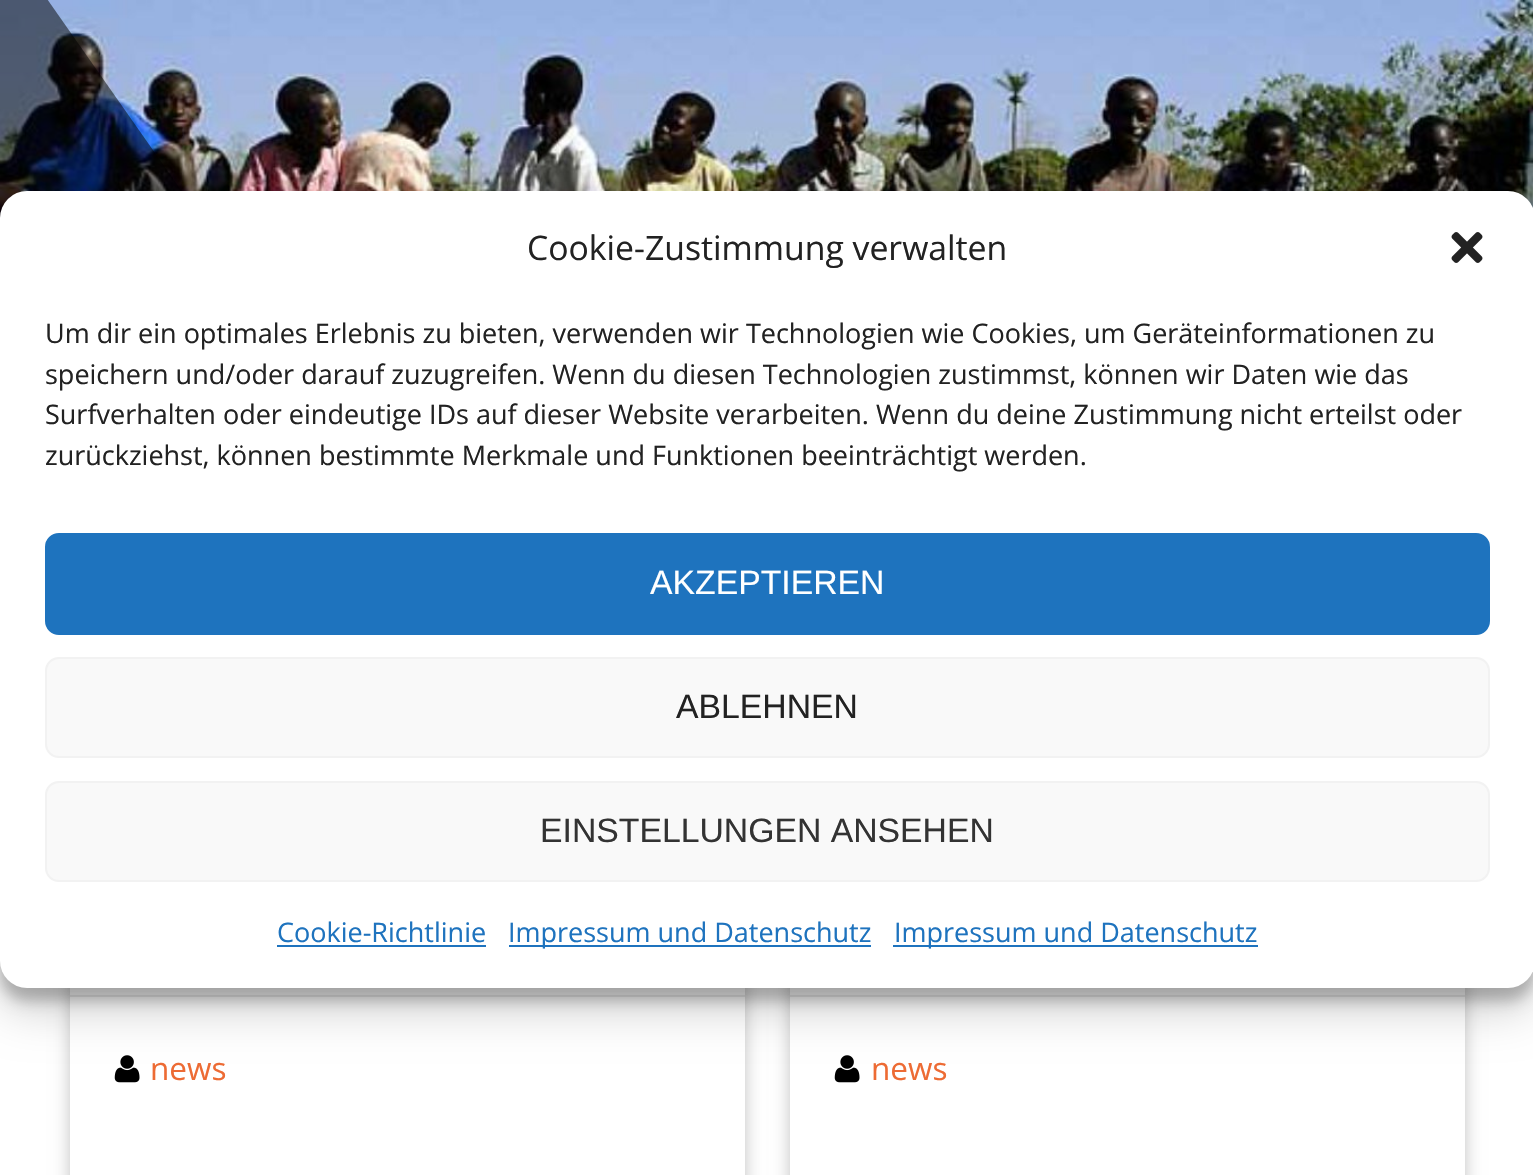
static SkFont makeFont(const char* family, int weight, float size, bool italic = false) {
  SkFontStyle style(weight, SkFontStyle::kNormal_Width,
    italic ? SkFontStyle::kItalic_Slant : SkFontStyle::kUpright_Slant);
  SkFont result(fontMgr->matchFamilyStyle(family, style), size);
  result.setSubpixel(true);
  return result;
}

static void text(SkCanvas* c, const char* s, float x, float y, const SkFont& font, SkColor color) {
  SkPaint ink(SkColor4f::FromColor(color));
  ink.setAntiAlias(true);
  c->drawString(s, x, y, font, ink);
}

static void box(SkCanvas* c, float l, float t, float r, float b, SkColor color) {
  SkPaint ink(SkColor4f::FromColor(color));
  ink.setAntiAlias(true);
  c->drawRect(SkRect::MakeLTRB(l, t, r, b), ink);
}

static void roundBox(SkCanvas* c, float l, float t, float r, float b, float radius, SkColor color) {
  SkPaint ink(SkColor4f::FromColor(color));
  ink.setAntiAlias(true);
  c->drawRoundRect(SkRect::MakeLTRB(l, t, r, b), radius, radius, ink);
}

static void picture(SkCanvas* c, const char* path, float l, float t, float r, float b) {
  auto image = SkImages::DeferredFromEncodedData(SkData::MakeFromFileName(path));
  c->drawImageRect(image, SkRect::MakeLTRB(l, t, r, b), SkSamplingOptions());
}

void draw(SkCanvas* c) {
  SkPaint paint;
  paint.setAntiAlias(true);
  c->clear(0xffffffff);
  picture(c, "img_02.png", 0, 0, 1533, 218);
  paint.setColor(0x80000000);
  c->drawPath(SkPathBuilder().moveTo(-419, -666).lineTo(462, 591).lineTo(-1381, 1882).lineTo(-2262, 625).close().detach(), paint);
  paint.setColor(0xffc2c2c2);
  paint.setMaskFilter(SkMaskFilter::MakeBlur(kNormal_SkBlurStyle, 8));
  c->drawRect(SkRect::MakeLTRB(70, 837, 745, 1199), paint);
  paint.setMaskFilter(nullptr);
  box(c, 70, 988, 745, 1175, 0xffffffff);
  box(c, 70, 995, 745, 997, 0xffeaeaea);
  paint.setMaskFilter(SkMaskFilter::MakeBlur(kNormal_SkBlurStyle, 8));
  c->drawRect(SkRect::MakeLTRB(790, 837, 1465, 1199), paint);
  paint.setMaskFilter(nullptr);
  box(c, 790, 988, 1465, 1175, 0xffffffff);
  box(c, 790, 995, 1465, 997, 0xffeaeaea);
  paint.setColor(0x3b000000);
  paint.setMaskFilter(SkMaskFilter::MakeBlur(kNormal_SkBlurStyle, 7));
  c->drawRoundRect(SkRect::MakeLTRB(0, 205, 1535, 1001), 27, 27, paint);
  paint.setMaskFilter(nullptr);
  picture(c, "img_03.png", 114, 1055, 140, 1083);
  picture(c, "img_03.png", 834, 1055, 860, 1083);
  paint.setColor(0x30000000);
  paint.setMaskFilter(SkMaskFilter::MakeBlur(kNormal_SkBlurStyle, 22.5f));
  c->drawRoundRect(SkRect::MakeLTRB(0, 214, 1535, 1010), 27, 27, paint);
  paint.setMaskFilter(nullptr);
  roundBox(c, 0, 191, 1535, 988, 27, 0xffffffff);
  SkFont face1 = makeFont("Open Sans", 400, 33.75f);
  text(c, "Cookie-Zustimmung verwalten", 527, 260, face1, 0xff222222);
  picture(c, "img_01.png", 1451, 232, 1483, 263);
  SkFont face2 = makeFont("Open Sans", 400, 27);
  text(c, "Um dir ein optimales Erlebnis zu bieten, verwenden wir Technologien wie Cookies, um Geräteinformationen zu", 45, 343, face2, 0xff222222);
  text(c, "speichern und/oder darauf zuzugreifen. Wenn du diesen Technologien zustimmst, können wir Daten wie das", 45, 384, face2, 0xff222222);
  text(c, "Surfverhalten oder eindeutige IDs auf dieser Website verarbeiten. Wenn du deine Zustimmung nicht erteilst oder", 45, 424, face2, 0xff222222);
  text(c, "zurückziehst, können bestimmte Merkmale und Funktionen beeinträchtigt werden.", 45, 465, face2, 0xff222222);
  paint.setColor(0xff1e73be);
  c->drawRoundRect(SkRect::MakeLTRB(46, 534, 1489, 634), 13, 13, paint);
  paint.setStyle(SkPaint::kStroke_Style);
  paint.setStrokeWidth(2);
  c->drawRoundRect(SkRect::MakeLTRB(46, 534, 1489, 634), 13, 13, paint);
  SkFont face3 = makeFont("Liberation Sans", 400, 33.75f);
  text(c, "AKZEPTIEREN", 650, 594, face3, 0xffffffff);
  paint.setStyle(SkPaint::kFill_Style);
  paint.setColor(0xfff9f9f9);
  c->drawRoundRect(SkRect::MakeLTRB(46, 658, 1489, 757), 13, 13, paint);
  paint.setStyle(SkPaint::kStroke_Style);
  paint.setColor(0xfff2f2f2);
  c->drawRoundRect(SkRect::MakeLTRB(46, 658, 1489, 757), 13, 13, paint);
  text(c, "ABLEHNEN", 676, 718, face3, 0xff222222);
  paint.setStyle(SkPaint::kFill_Style);
  paint.setColor(0xfff9f9f9);
  c->drawRoundRect(SkRect::MakeLTRB(46, 782, 1489, 881), 13, 13, paint);
  paint.setStyle(SkPaint::kStroke_Style);
  paint.setColor(0xfff2f2f2);
  c->drawRoundRect(SkRect::MakeLTRB(46, 782, 1489, 881), 13, 13, paint);
  text(c, "EINSTELLUNGEN ANSEHEN", 540, 842, face3, 0xff333333);
  text(c, "Cookie-Richtlinie", 277, 942, face2, 0xff1e73be);
  box(c, 277, 945, 486, 947, 0xff1e73be);
  box(c, 509, 945, 871, 947, 0xff1e73be);
  text(c, "Impressum und Datenschutz", 508, 942, face2, 0xff1e73be);
  box(c, 893, 945, 1258, 947, 0xff1e73be);
  text(c, "Impressum und Datenschutz", 894, 942, face2, 0xff1e73be);
  SkFont face4 = makeFont("Open Sans", 400, 31.5f);
  text(c, "news", 150, 1080, face4, 0xffed6b34);
  text(c, "news", 871, 1080, face4, 0xffed6b34);
}
